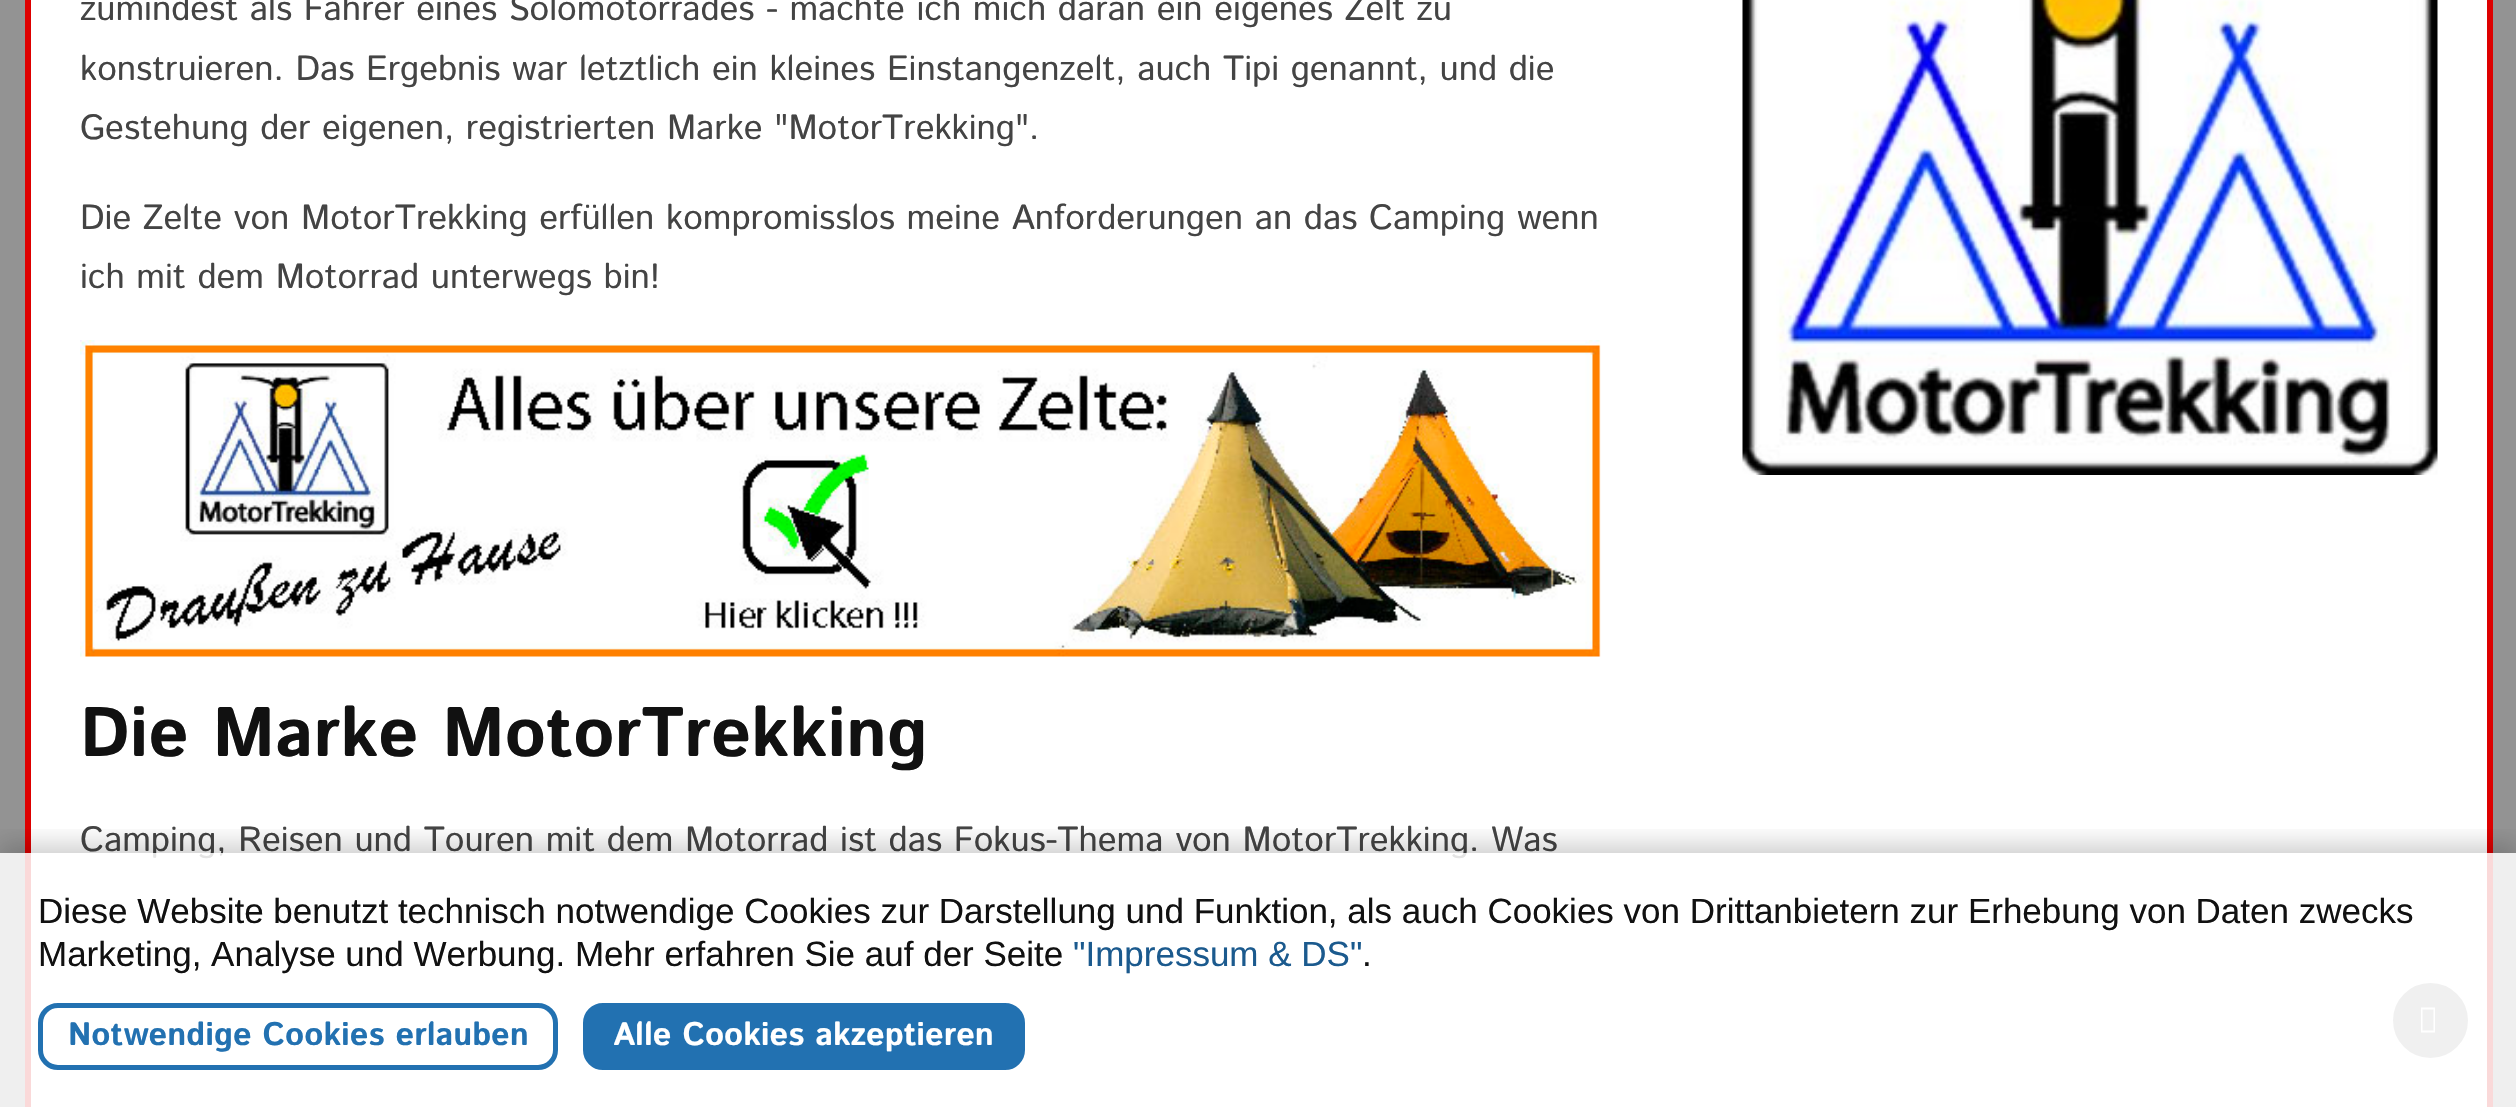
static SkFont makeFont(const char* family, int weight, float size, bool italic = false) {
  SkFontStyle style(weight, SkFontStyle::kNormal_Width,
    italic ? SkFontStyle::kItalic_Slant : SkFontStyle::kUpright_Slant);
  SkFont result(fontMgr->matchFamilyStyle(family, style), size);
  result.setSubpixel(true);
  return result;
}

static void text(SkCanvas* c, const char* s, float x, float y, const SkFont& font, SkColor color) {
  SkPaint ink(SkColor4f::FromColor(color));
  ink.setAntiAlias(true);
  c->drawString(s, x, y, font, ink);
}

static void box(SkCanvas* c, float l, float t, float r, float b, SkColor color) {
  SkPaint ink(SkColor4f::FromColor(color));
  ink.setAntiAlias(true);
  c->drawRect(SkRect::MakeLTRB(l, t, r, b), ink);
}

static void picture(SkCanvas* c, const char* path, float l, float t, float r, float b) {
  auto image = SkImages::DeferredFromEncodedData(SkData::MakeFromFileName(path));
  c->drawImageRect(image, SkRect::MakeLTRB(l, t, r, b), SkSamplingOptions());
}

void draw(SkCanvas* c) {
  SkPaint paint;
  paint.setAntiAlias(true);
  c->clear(0xff939393);
  box(c, 31, 0, 2487, 1107, 0xffffffff);
  paint.setStyle(SkPaint::kStroke_Style);
  paint.setStrokeWidth(3);
  paint.setColor(0xffdd0000);
  c->drawRect(SkRect::MakeLTRB(26.5f, -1.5f, 2491.5f, 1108.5f), paint);
  c->drawRect(SkRect::MakeLTRB(29.5f, -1.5f, 2488.5f, 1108.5f), paint);
  SkFont face1 = makeFont("Istok Web", 400, 35);
  text(c, "zumindest als Fahrer eines Solomotorrades - machte ich mich daran ein eigenes Zelt zu", 80, 20, face1, 0xff444444);
  text(c, "konstruieren. Das Ergebnis war letztlich ein kleines Einstangenzelt, auch Tipi genannt, und die", 80, 80, face1, 0xff444444);
  text(c, "Gestehung der eigenen, registrierten Marke \"MotorTrekking\".", 80, 139, face1, 0xff444444);
  text(c, "Die Zelte von MotorTrekking erfüllen kompromisslos meine Anforderungen an das Camping wenn", 80, 229, face1, 0xff444444);
  text(c, "ich mit dem Motorrad unterwegs bin!", 80, 288, face1, 0xff444444);
  picture(c, "img_01.png", 80, 340, 1601, 657);
  SkFont face2 = makeFont("Istok Web", 700, 70);
  text(c, "Die Marke MotorTrekking", 80, 756, face2, 0xff111111);
  text(c, "Camping, Reisen und Touren mit dem Motorrad ist das Fokus-Thema von MotorTrekking. Was", 80, 851, face1, 0xff444444);
  picture(c, "img_02.png", 1742, 0, 2438, 475);
  paint.setStyle(SkPaint::kFill_Style);
  paint.setColor(0xff999999);
  c->drawCircle(2430.5f, 1020.5f, 36, paint);
  paint.setStyle(SkPaint::kStroke_Style);
  c->drawCircle(2430.5f, 1020.5f, 36, paint);
  paint.setStyle(SkPaint::kFill_Style);
  paint.setColor(0xffffffff);
  c->drawPath(SkPathBuilder().moveTo(2421, 1032.5f).lineTo(2421, 1007.5f).lineTo(2435, 1007.5f).lineTo(2435, 1032.5f).close().moveTo(2422.5f, 1030.5f).lineTo(2433.5f, 1030.5f).lineTo(2433.5f, 1009.5f).lineTo(2422.5f, 1009.5f).close().detach(), paint);
  c->save();
  c->clipRect(SkRect::MakeLTRB(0, 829, 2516, 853));
  paint.setColor(0x33000000);
  paint.setMaskFilter(SkMaskFilter::MakeBlur(kNormal_SkBlurStyle, 12.5f));
  c->drawRect(SkRect::MakeLTRB(0, 845, 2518, 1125), paint);
  paint.setMaskFilter(nullptr);
  c->restore();
  box(c, 0, 853, 2516, 1107, 0xd9ffffff);
  SkFont face3 = makeFont("Liberation Sans", 400, 35);
  text(c, "Diese Website benutzt technisch notwendige Cookies zur Darstellung und Funktion, als auch Cookies von Drittanbietern zur Erhebung von Daten zwecks", 38, 923, face3, 0xff111111);
  text(c, "Marketing, Analyse und Werbung. Mehr erfahren Sie auf der Seite", 38, 966, face3, 0xff111111);
  text(c, "\"Impressum & DS\"", 1073, 966, face3, 0xff1b5a8e);
  text(c, ".", 1362, 966, face3, 0xff111111);
  paint.setStyle(SkPaint::kStroke_Style);
  paint.setStrokeWidth(5);
  paint.setColor(0xff2271b1);
  c->drawRoundRect(SkRect::MakeLTRB(40.5f, 1005.5f, 555.5f, 1067.5f), 17.5f, 17.5f, paint);
  SkFont face4 = makeFont("Istok Web", 700, 32.5f);
  text(c, "Notwendige Cookies erlauben", 68, 1045, face4, 0xff2271b1);
  paint.setStyle(SkPaint::kFill_Style);
  c->drawRoundRect(SkRect::MakeLTRB(585.5f, 1005.5f, 1022.5f, 1067.5f), 17.5f, 17.5f, paint);
  paint.setStyle(SkPaint::kStroke_Style);
  c->drawRoundRect(SkRect::MakeLTRB(585.5f, 1005.5f, 1022.5f, 1067.5f), 17.5f, 17.5f, paint);
  text(c, "Alle Cookies akzeptieren", 613, 1045, face4, 0xffffffff);
}
